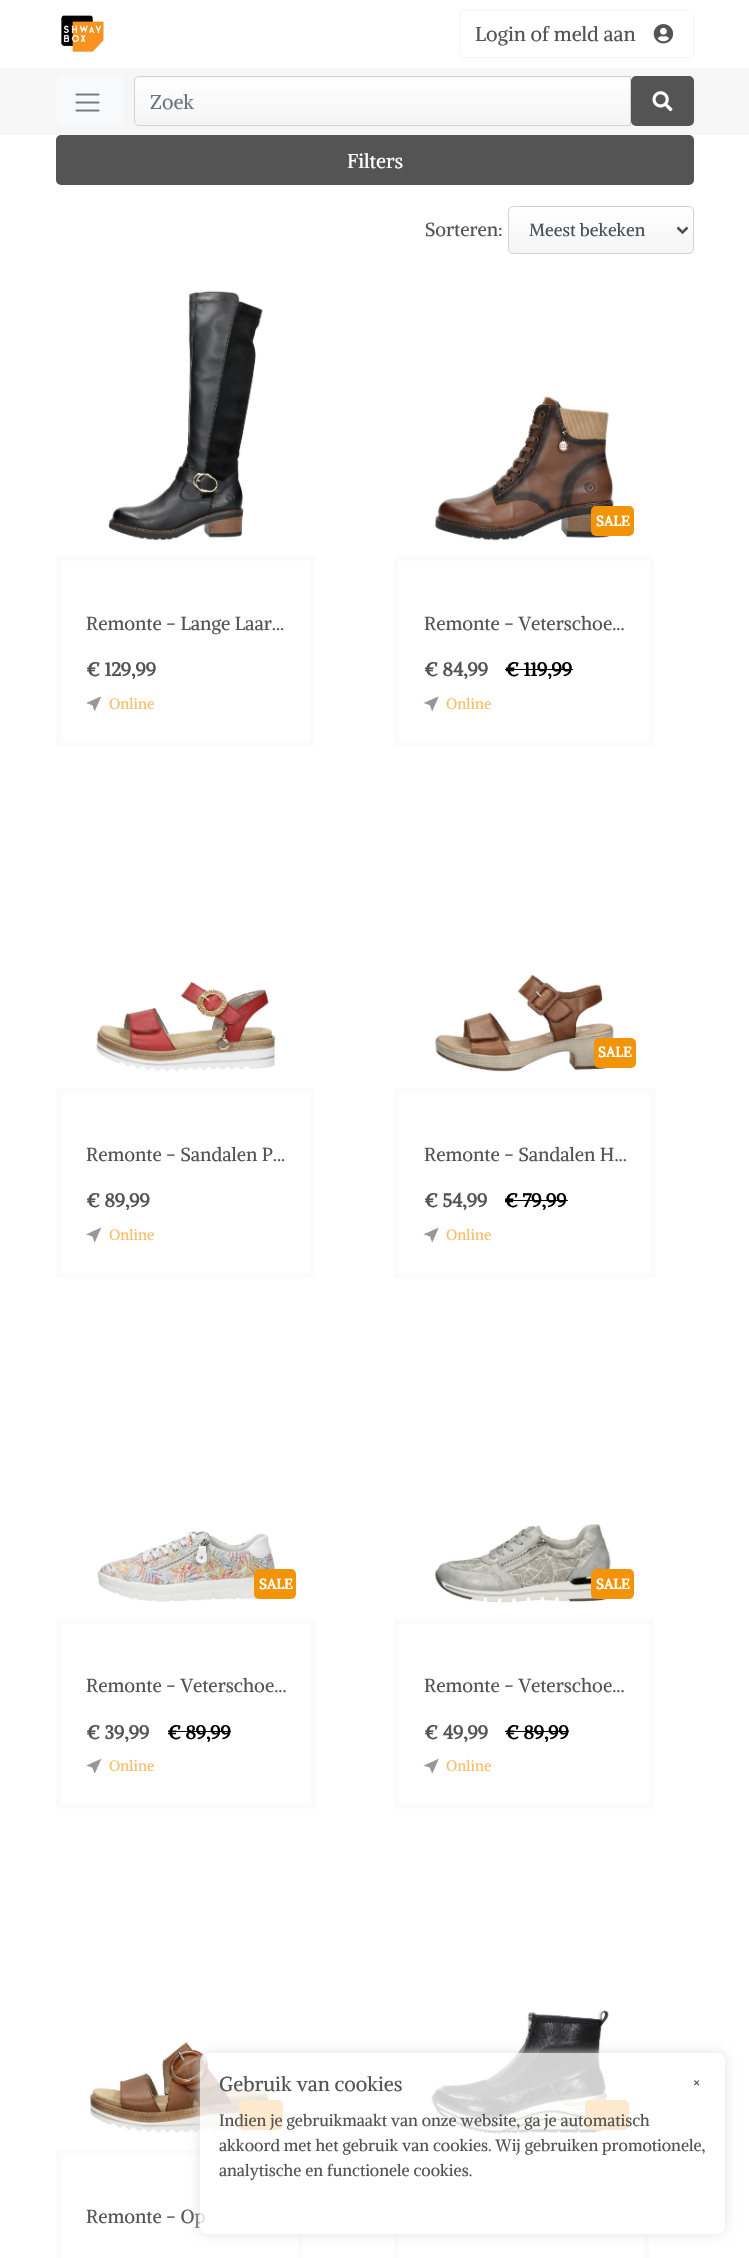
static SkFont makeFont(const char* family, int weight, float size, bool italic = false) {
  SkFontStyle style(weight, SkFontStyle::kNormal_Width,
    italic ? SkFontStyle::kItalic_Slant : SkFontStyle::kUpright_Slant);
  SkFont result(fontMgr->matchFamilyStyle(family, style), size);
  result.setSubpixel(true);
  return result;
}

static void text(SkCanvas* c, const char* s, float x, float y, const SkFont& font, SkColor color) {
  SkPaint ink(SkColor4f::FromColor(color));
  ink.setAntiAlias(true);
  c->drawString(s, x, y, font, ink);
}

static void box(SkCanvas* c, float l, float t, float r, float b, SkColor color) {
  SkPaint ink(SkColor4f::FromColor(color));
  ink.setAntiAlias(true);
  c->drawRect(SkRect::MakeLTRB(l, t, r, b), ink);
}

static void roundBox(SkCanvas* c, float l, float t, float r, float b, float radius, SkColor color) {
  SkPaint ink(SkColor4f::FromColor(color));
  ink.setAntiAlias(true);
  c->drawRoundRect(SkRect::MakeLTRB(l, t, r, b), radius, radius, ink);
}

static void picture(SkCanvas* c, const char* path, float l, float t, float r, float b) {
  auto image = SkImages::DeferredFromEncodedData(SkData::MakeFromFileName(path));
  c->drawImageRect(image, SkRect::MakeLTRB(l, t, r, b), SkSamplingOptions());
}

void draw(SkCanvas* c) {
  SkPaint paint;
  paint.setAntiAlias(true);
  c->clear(0xffffffff);
  picture(c, "img_01.png", 61, 15, 104, 52);
  paint.setStyle(SkPaint::kStroke_Style);
  paint.setStrokeWidth(1);
  paint.setColor(0xfff6f6f6);
  c->drawRoundRect(SkRect::MakeLTRB(459.5f, 10.5f, 693.5f, 57.5f), 4.5f, 4.5f, paint);
  SkFont face1 = makeFont("Alike", 400, 20);
  text(c, "Login of meld aan", 475, 41, face1, 0xff545454);
  picture(c, "img_02.png", 653, 24, 674, 44);
  box(c, 0, 68, 749, 135, 0xfff6f6f6);
  roundBox(c, 56, 76, 124, 126, 5, 0xfff8f9fa);
  picture(c, "img_03.png", 75, 93, 100, 112);
  paint.setStyle(SkPaint::kFill_Style);
  {
    const SkColor colors[] = {0xffffffff, 0xfff5f5f5};
    const float stops[] = {0, 1};
    const SkPoint ends[] = {{383, 77}, {383, 125}};
    paint.setShader(SkGradientShader::MakeLinear(ends, colors, stops, 2, SkTileMode::kClamp));
    paint.setAlpha(255);
  }
  c->drawPath(SkPathBuilder().moveTo(139, 78).lineTo(630, 78).lineTo(630, 125).lineTo(139, 125).cubicTo(137, 125, 135, 123, 135, 121).lineTo(135, 82).cubicTo(135, 80, 137, 78, 139, 78).close().detach(), paint);
  paint.setStyle(SkPaint::kStroke_Style);
  paint.setShader(nullptr);
  paint.setColor(0xffced4da);
  c->drawPath(SkPathBuilder().moveTo(139, 76.5f).lineTo(630.5f, 76.5f).lineTo(630.5f, 125.5f).lineTo(139, 125.5f).cubicTo(136.5f, 125.5f, 134.5f, 123.5f, 134.5f, 121).lineTo(134.5f, 81).cubicTo(134.5f, 78.5f, 136.5f, 76.5f, 139, 76.5f).close().detach(), paint);
  text(c, "Zoek", 150, 109, face1, 0xff6c757d);
  paint.setStyle(SkPaint::kFill_Style);
  paint.setColor(0xff545454);
  c->drawRoundRect(SkRect::MakeLTRB(632.5f, 77.5f, 692.5f, 124.5f), 3.5f, 3.5f, paint);
  paint.setStyle(SkPaint::kStroke_Style);
  paint.setStrokeWidth(3);
  c->drawRoundRect(SkRect::MakeLTRB(632.5f, 77.5f, 692.5f, 124.5f), 3.5f, 3.5f, paint);
  picture(c, "img_04.png", 652, 91, 673, 112);
  paint.setStyle(SkPaint::kFill_Style);
  c->drawRoundRect(SkRect::MakeLTRB(57.5f, 136.5f, 692.5f, 183.5f), 3.5f, 3.5f, paint);
  paint.setStyle(SkPaint::kStroke_Style);
  c->drawRoundRect(SkRect::MakeLTRB(57.5f, 136.5f, 692.5f, 183.5f), 3.5f, 3.5f, paint);
  text(c, "Filters", 347, 168, face1, 0xffffffff);
  SkFont face2 = makeFont("Alike", 400, 18.75f);
  text(c, "Sorteren:", 425, 236, face2, 0xff545454);
  paint.setStyle(SkPaint::kFill_Style);
  {
    const SkColor colors[] = {0xffffffff, 0xfff5f5f5};
    const float stops[] = {0, 1};
    const SkPoint ends[] = {{601, 208}, {601, 253}};
    paint.setShader(SkGradientShader::MakeLinear(ends, colors, stops, 2, SkTileMode::kClamp));
    paint.setAlpha(255);
  }
  c->drawRoundRect(SkRect::MakeLTRB(509, 208, 693, 253), 4, 4, paint);
  paint.setStyle(SkPaint::kStroke_Style);
  paint.setStrokeWidth(1);
  paint.setShader(nullptr);
  paint.setColor(0xffced4da);
  c->drawRoundRect(SkRect::MakeLTRB(508.5f, 206.5f, 693.5f, 253.5f), 4.5f, 4.5f, paint);
  paint.setStrokeWidth(2.5f);
  paint.setColor(0xff495057);
  c->drawPath(SkPathBuilder().moveTo(677.5f, 227.5f).lineTo(682.5f, 232.5f).lineTo(687.5f, 227.5f).detach(), paint);
  SkFont face3 = makeFont("Alike", 400, 17.5f);
  text(c, "Meest bekeken", 529, 236, face3, 0xff495057);
  picture(c, "img_05.png", 108, 290, 263, 541);
  paint.setStrokeWidth(5);
  paint.setColor(0xfffbfbfb);
  c->drawRect(SkRect::MakeLTRB(58.5f, 558.5f, 312.5f, 743.5f), paint);
  text(c, "Remonte - Lange Laar...", 86, 630, face2, 0xff545454);
  SkFont face4 = makeFont("Alike", 700, 18.75f);
  text(c, "€ 129,99", 86, 676, face4, 0xff545454);
  picture(c, "img_06.png", 86, 696, 102, 711);
  SkFont face5 = makeFont("Alike", 400, 15);
  text(c, "Online", 109, 709, face5, 0xfff8be6a);
  picture(c, "img_07.png", 434, 396, 614, 541);
  roundBox(c, 591, 506, 634, 536, 5, 0xfff39307);
  SkFont face6 = makeFont("Alike", 700, 14);
  text(c, "SALE", 596, 526, face6, 0xffffffff);
  c->drawRect(SkRect::MakeLTRB(396.5f, 558.5f, 651.5f, 743.5f), paint);
  text(c, "Remonte - Veterschoe...", 424, 630, face2, 0xff545454);
  text(c, "€ 84,99", 424, 676, face4, 0xff545454);
  text(c, "€ 119,99", 505, 676, face4, 0xff000000);
  box(c, 505, 669, 573, 670, 0xff000000);
  picture(c, "img_08.png", 423, 696, 439, 712);
  text(c, "Online", 446, 709, face5, 0xfff8be6a);
  picture(c, "img_09.png", 96, 982, 276, 1072);
  c->drawRect(SkRect::MakeLTRB(58.5f, 1090.5f, 312.5f, 1275.5f), paint);
  text(c, "Remonte - Sandalen P...", 86, 1161, face2, 0xff545454);
  text(c, "€ 89,99", 86, 1207, face4, 0xff545454);
  picture(c, "img_10.png", 86, 1227, 102, 1243);
  text(c, "Online", 109, 1240, face5, 0xfff8be6a);
  picture(c, "img_11.png", 434, 974, 614, 1072);
  roundBox(c, 594, 1038, 636, 1068, 5, 0xfff39307);
  text(c, "SALE", 598, 1057, face6, 0xffffffff);
  c->drawRect(SkRect::MakeLTRB(396.5f, 1090.5f, 653.5f, 1275.5f), paint);
  text(c, "Remonte - Sandalen H...", 424, 1161, face2, 0xff545454);
  text(c, "€ 54,99", 424, 1207, face4, 0xff545454);
  text(c, "€ 79,99", 504, 1207, face4, 0xff000000);
  box(c, 505, 1200, 568, 1201, 0xff000000);
  picture(c, "img_12.png", 423, 1227, 439, 1243);
  text(c, "Online", 446, 1240, face5, 0xfff8be6a);
  picture(c, "img_13.png", 97, 1531, 276, 1602);
  roundBox(c, 254, 1569, 296, 1599, 5, 0xfff39307);
  text(c, "SALE", 259, 1589, face6, 0xffffffff);
  c->drawRect(SkRect::MakeLTRB(58.5f, 1621.5f, 313.5f, 1806.5f), paint);
  text(c, "Remonte - Veterschoe...", 86, 1692, face2, 0xff545454);
  text(c, "€ 39,99", 86, 1739, face4, 0xff545454);
  text(c, "€ 89,99", 167, 1739, face4, 0xff000000);
  box(c, 168, 1731, 231, 1732, 0xff000000);
  picture(c, "img_14.png", 86, 1758, 102, 1774);
  text(c, "Online", 109, 1771, face5, 0xfff8be6a);
  picture(c, "img_15.png", 434, 1524, 614, 1603);
  roundBox(c, 591, 1569, 634, 1599, 5, 0xfff39307);
  text(c, "SALE", 596, 1589, face6, 0xffffffff);
  c->drawRect(SkRect::MakeLTRB(396.5f, 1621.5f, 651.5f, 1806.5f), paint);
  text(c, "Remonte - Veterschoe...", 424, 1692, face2, 0xff545454);
  text(c, "€ 49,99", 424, 1739, face4, 0xff545454);
  text(c, "€ 89,99", 505, 1739, face4, 0xff000000);
  box(c, 505, 1731, 569, 1732, 0xff000000);
  picture(c, "img_16.png", 423, 1758, 439, 1774);
  text(c, "Online", 446, 1771, face5, 0xfff8be6a);
  picture(c, "img_17.png", 89, 2042, 270, 2133);
  roundBox(c, 239, 2100, 283, 2130, 5, 0xfff39307);
  c->drawRect(SkRect::MakeLTRB(58.5f, 2152.5f, 300.5f, 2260.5f), paint);
  text(c, "Remonte - Op", 86, 2223, face2, 0xff545454);
  picture(c, "img_18.png", 431, 2010, 611, 2135);
  roundBox(c, 585, 2100, 629, 2130, 5, 0xfff39307);
  c->drawRect(SkRect::MakeLTRB(396.5f, 2152.5f, 646.5f, 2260.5f), paint);
  c->save();
  c->clipPath(SkPathBuilder(SkPathFillType::kEvenOdd).moveTo(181, 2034).lineTo(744, 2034).lineTo(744, 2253).lineTo(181, 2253).close().moveTo(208, 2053).lineTo(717, 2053).cubicTo(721.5f, 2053, 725, 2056.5f, 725, 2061).lineTo(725, 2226).cubicTo(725, 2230.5f, 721.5f, 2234, 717, 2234).lineTo(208, 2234).cubicTo(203.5f, 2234, 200, 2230.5f, 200, 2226).lineTo(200, 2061).cubicTo(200, 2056.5f, 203.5f, 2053, 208, 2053).close().detach(), true);
  paint.setStyle(SkPaint::kFill_Style);
  paint.setColor(0xffe3e3e3);
  paint.setMaskFilter(SkMaskFilter::MakeBlur(kNormal_SkBlurStyle, 6));
  c->drawRoundRect(SkRect::MakeLTRB(200, 2053, 725, 2234), 8, 8, paint);
  paint.setMaskFilter(nullptr);
  c->restore();
  roundBox(c, 200, 2053, 725, 2234, 8, 0xccffffff);
  text(c, "Gebruik van cookies", 219, 2091, face1, 0xff545454);
  SkFont face7 = makeFont("Alike", 400, 16.25f);
  text(c, "×", 693, 2088, face7, 0xff545454);
  text(c, "Indien je gebruikmaakt van onze website, ga je automatisch", 219, 2126, face7, 0xff545454);
  text(c, "akkoord met het gebruik van cookies. Wij gebruiken promotionele,", 219, 2151, face7, 0xff545454);
  text(c, "analytische en functionele cookies.", 219, 2176, face7, 0xff545454);
}
